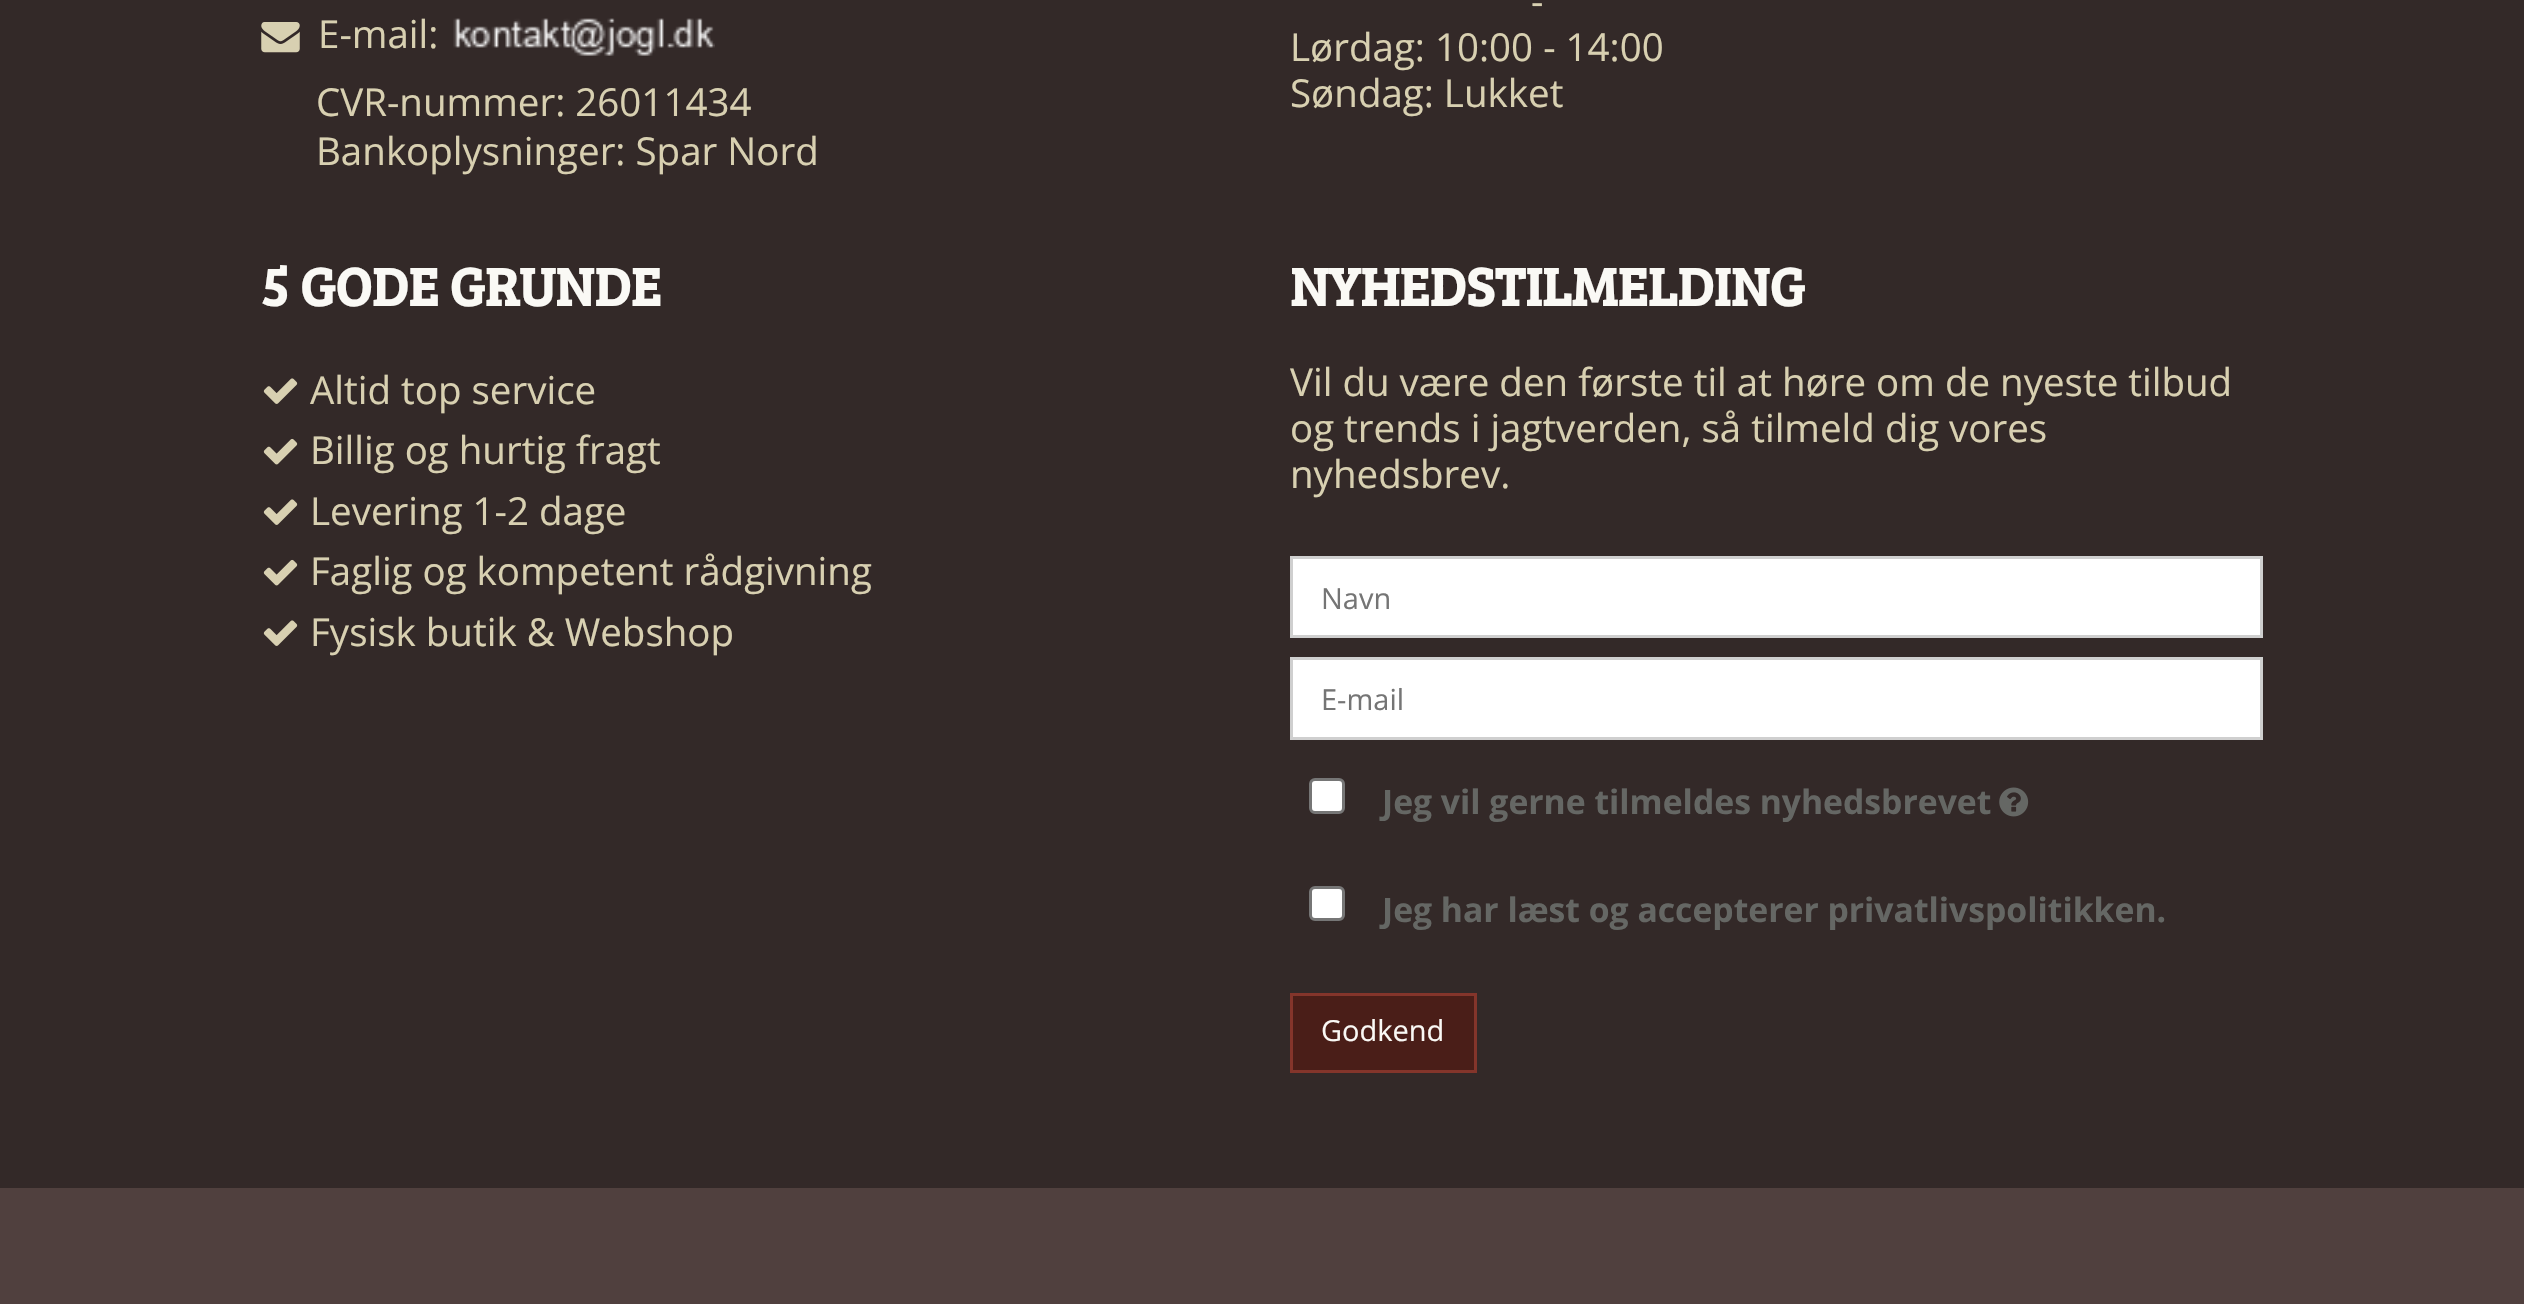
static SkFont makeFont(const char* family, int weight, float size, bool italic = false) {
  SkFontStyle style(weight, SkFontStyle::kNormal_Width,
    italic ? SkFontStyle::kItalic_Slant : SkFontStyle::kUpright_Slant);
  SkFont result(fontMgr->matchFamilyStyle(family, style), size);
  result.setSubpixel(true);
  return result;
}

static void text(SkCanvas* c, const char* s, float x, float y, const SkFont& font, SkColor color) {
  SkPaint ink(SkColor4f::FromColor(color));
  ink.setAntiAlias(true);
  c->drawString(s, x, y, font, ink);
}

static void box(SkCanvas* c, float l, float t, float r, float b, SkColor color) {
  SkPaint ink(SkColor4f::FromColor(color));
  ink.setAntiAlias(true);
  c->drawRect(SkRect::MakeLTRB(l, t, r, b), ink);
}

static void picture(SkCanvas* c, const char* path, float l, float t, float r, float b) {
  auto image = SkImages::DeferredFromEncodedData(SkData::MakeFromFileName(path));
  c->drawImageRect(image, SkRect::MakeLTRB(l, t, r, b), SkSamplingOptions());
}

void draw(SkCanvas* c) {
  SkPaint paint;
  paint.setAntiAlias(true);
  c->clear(0xff332928);
  picture(c, "img_01.png", 261, 22, 300, 53);
  SkFont face1 = makeFont("Open Sans", 400, 38.5f);
  text(c, "E-mail:", 318, 48, face1, 0xffd8d0b1);
  picture(c, "img_02.png", 453, 18, 715, 56);
  text(c, "CVR-nummer: 26011434", 316, 116, face1, 0xffd8d0b1);
  text(c, "Bankoplysninger: Spar Nord", 316, 165, face1, 0xffd8d0b1);
  text(c, "-", 1531, 15, face1, 0xffd8d0b1);
  text(c, "Lørdag: 10:00 - 14:00", 1290, 61, face1, 0xffd8d0b1);
  text(c, "Søndag: Lukket", 1290, 107, face1, 0xffd8d0b1);
  SkFont face2 = makeFont("Bree Serif", 700, 55);
  text(c, "5 GODE GRUNDE", 261, 306, face2, 0xfffaf9f5);
  picture(c, "img_03.png", 263, 378, 298, 404);
  text(c, "Altid top service", 310, 404, face1, 0xffd8d0b1);
  picture(c, "img_04.png", 263, 438, 298, 465);
  text(c, "Billig og hurtig fragt", 310, 464, face1, 0xffd8d0b1);
  picture(c, "img_03.png", 263, 499, 298, 525);
  text(c, "Levering 1-2 dage", 310, 525, face1, 0xffd8d0b1);
  picture(c, "img_04.png", 263, 559, 298, 586);
  text(c, "Faglig og kompetent rådgivning", 310, 585, face1, 0xffd8d0b1);
  picture(c, "img_03.png", 263, 620, 298, 646);
  text(c, "Fysisk butik & Webshop", 310, 646, face1, 0xffd8d0b1);
  text(c, "NYHEDSTILMELDING", 1290, 306, face2, 0xfffaf9f5);
  text(c, "Vil du være den første til at høre om de nyeste tilbud", 1290, 396, face1, 0xffd8d0b1);
  text(c, "og trends i jagtverden, så tilmeld dig vores", 1290, 442, face1, 0xffd8d0b1);
  text(c, "nyhedsbrev.", 1290, 488, face1, 0xffd8d0b1);
  paint.setColor(0xffffffff);
  c->drawRect(SkRect::MakeLTRB(1291.5f, 557.5f, 2261.5f, 636.5f), paint);
  paint.setStyle(SkPaint::kStroke_Style);
  paint.setStrokeWidth(3);
  paint.setColor(0xffcfcfcf);
  c->drawRect(SkRect::MakeLTRB(1291.5f, 557.5f, 2261.5f, 636.5f), paint);
  SkFont face3 = makeFont("Open Sans", 400, 29);
  text(c, "Navn", 1321, 609, face3, 0xff757575);
  paint.setStyle(SkPaint::kFill_Style);
  paint.setColor(0xffffffff);
  c->drawRect(SkRect::MakeLTRB(1291.5f, 658.5f, 2261.5f, 738.5f), paint);
  paint.setStyle(SkPaint::kStroke_Style);
  paint.setColor(0xffcfcfcf);
  c->drawRect(SkRect::MakeLTRB(1291.5f, 658.5f, 2261.5f, 738.5f), paint);
  text(c, "E-mail", 1321, 710, face3, 0xff757575);
  paint.setStyle(SkPaint::kFill_Style);
  paint.setColor(0xffffffff);
  c->drawRoundRect(SkRect::MakeLTRB(1310.5f, 779.5f, 1343.5f, 812.5f), 4.5f, 4.5f, paint);
  paint.setStyle(SkPaint::kStroke_Style);
  paint.setColor(0xff767676);
  c->drawRoundRect(SkRect::MakeLTRB(1310.5f, 779.5f, 1343.5f, 812.5f), 4.5f, 4.5f, paint);
  SkFont face4 = makeFont("Open Sans", 700, 33.7f);
  text(c, "Jeg vil gerne tilmeldes nyhedsbrevet", 1382, 814, face4, 0xff656764);
  picture(c, "img_05.png", 1999, 787, 2029, 817);
  paint.setStyle(SkPaint::kFill_Style);
  paint.setColor(0xffffffff);
  c->drawRoundRect(SkRect::MakeLTRB(1310.5f, 887.5f, 1343.5f, 919.5f), 4.5f, 4.5f, paint);
  paint.setStyle(SkPaint::kStroke_Style);
  paint.setColor(0xff767676);
  c->drawRoundRect(SkRect::MakeLTRB(1310.5f, 887.5f, 1343.5f, 919.5f), 4.5f, 4.5f, paint);
  text(c, "Jeg har læst og accepterer privatlivspolitikken.", 1382, 922, face4, 0xff656764);
  paint.setStyle(SkPaint::kFill_Style);
  paint.setColor(0xff4a1e18);
  c->drawRect(SkRect::MakeLTRB(1291.5f, 994.5f, 1475.5f, 1071.5f), paint);
  paint.setStyle(SkPaint::kStroke_Style);
  paint.setColor(0xff84352b);
  c->drawRect(SkRect::MakeLTRB(1291.5f, 994.5f, 1475.5f, 1071.5f), paint);
  text(c, "Godkend", 1321, 1041, face3, 0xfffaf9f5);
  box(c, 0, 1188, 2524, 1304, 0xff50403e);
}
